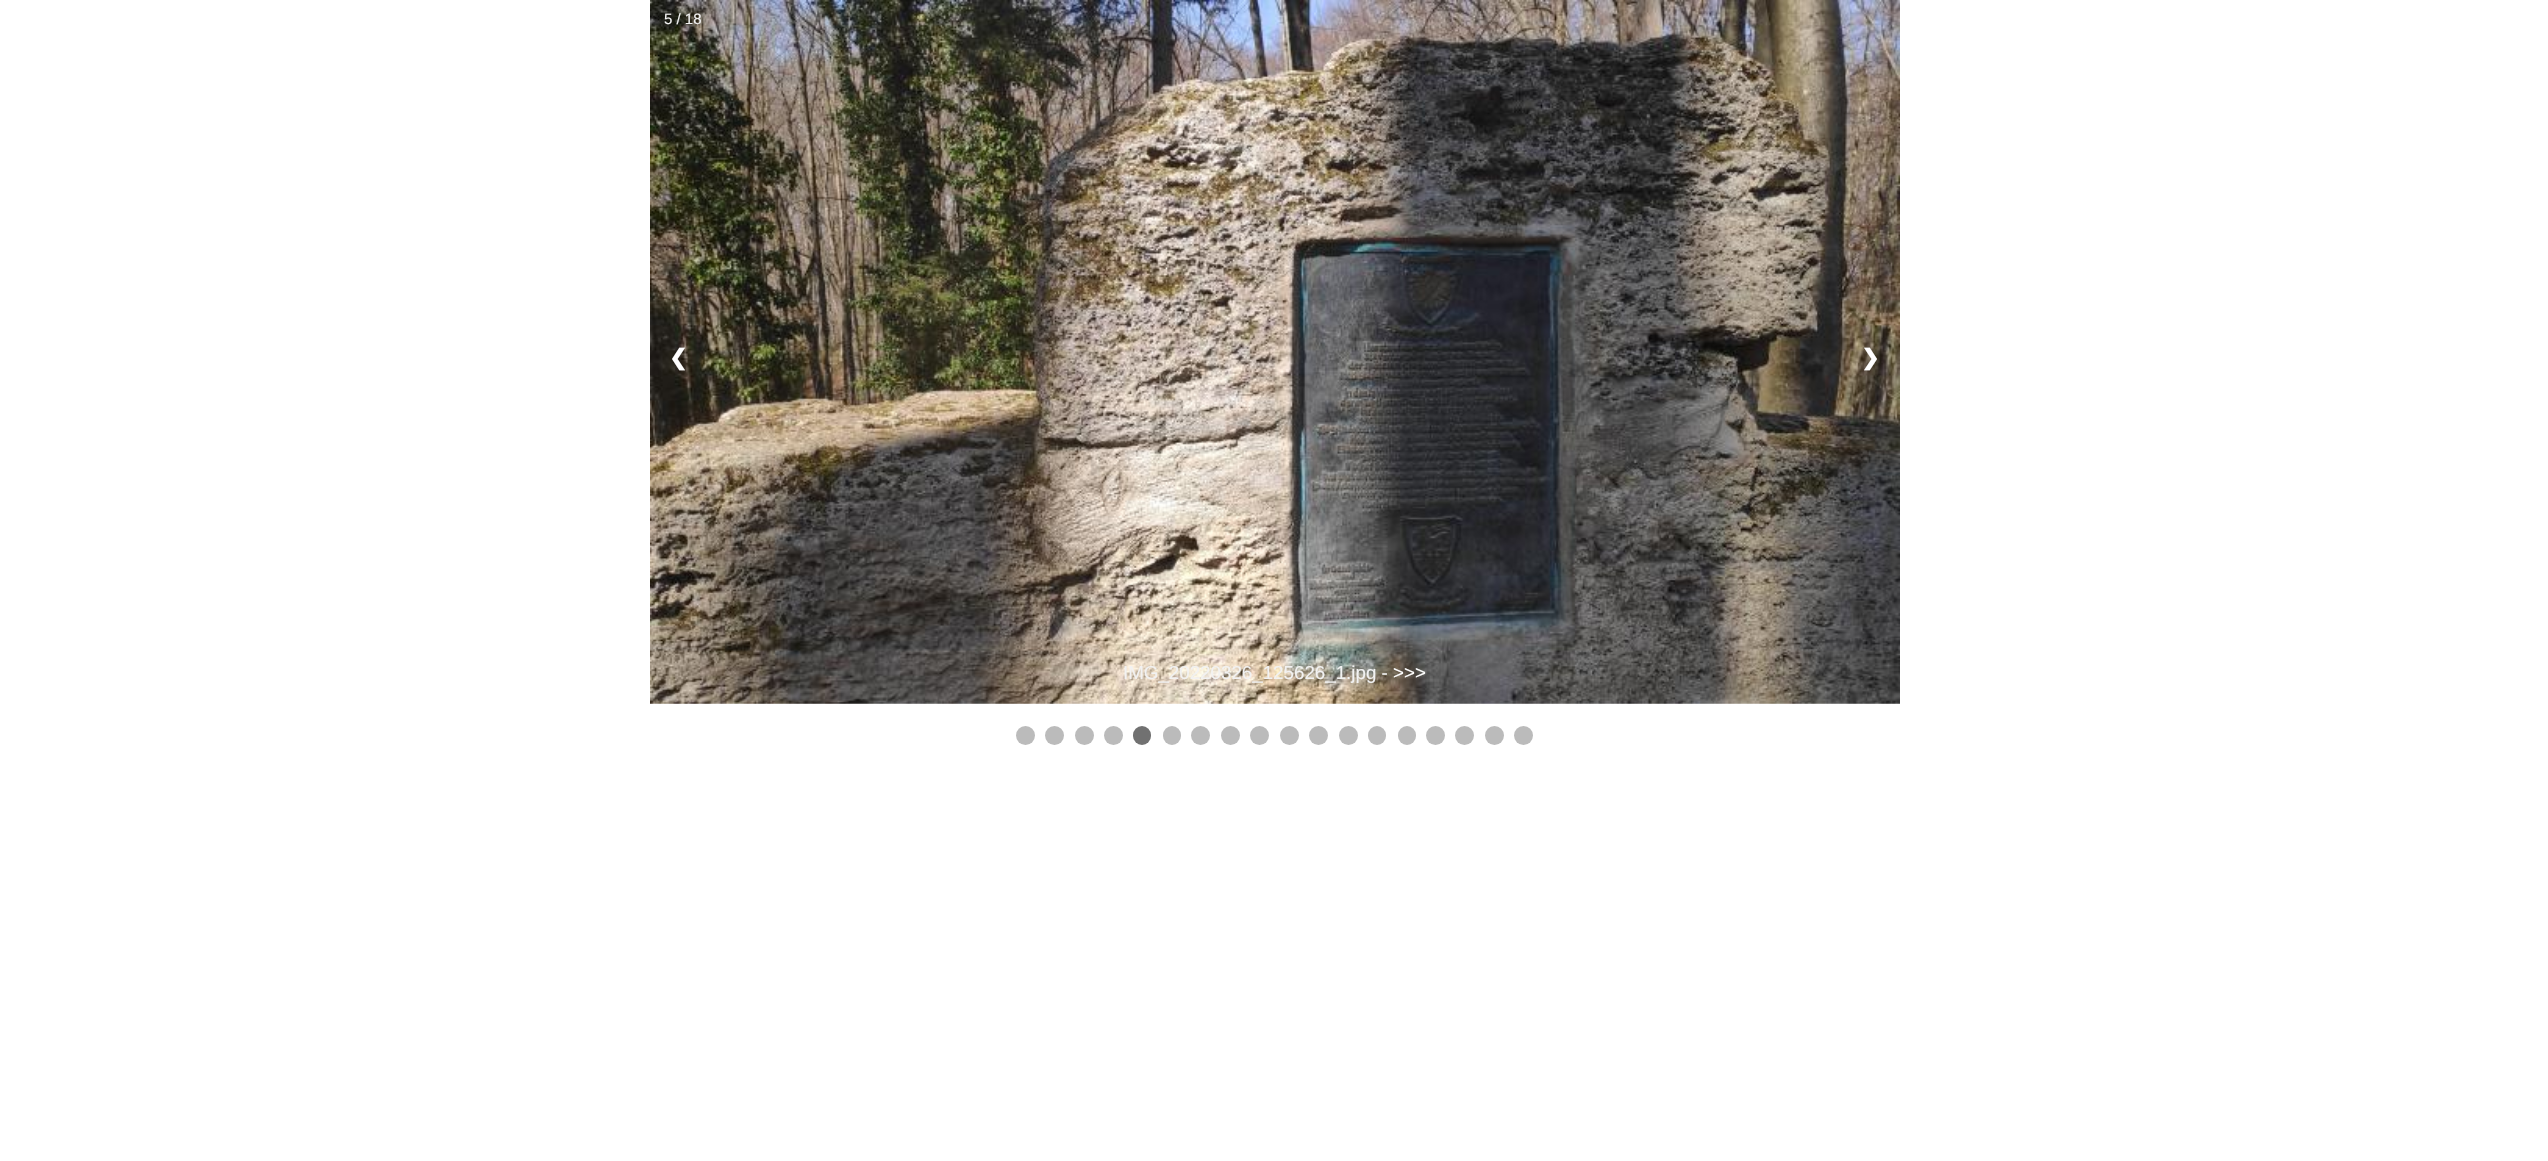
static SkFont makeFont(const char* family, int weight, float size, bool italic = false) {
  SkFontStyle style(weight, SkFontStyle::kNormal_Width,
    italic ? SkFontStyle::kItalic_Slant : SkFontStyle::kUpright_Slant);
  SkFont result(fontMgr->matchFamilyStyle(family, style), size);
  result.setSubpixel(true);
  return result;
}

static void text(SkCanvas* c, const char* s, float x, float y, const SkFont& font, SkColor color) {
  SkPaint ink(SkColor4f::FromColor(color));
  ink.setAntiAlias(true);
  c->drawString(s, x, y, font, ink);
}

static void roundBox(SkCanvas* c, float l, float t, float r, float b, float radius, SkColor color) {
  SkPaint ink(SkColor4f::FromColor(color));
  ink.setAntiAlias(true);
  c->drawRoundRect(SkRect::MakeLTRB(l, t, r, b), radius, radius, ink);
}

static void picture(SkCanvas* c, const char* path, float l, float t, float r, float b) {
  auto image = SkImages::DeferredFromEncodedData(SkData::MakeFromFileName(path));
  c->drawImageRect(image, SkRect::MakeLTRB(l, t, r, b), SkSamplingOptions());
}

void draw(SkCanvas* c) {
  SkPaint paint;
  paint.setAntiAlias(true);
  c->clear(0xffffffff);
  picture(c, "img_01.png", 650, 0, 1900, 704);
  SkFont face1 = makeFont("Liberation Sans", 400, 15);
  text(c, "5 / 18", 664, 24, face1, 0xfff2f2f2);
  SkFont face2 = makeFont("Liberation Sans", 400, 18.75f);
  text(c, "IMG_20220326_125626_1.jpg -", 1123, 679, face2, 0xfff2f2f2);
  text(c, ">>>", 1393, 679, face2, 0xffffffff);
  SkFont face3 = makeFont("DejaVu Sans", 700, 22);
  text(c, "❮", 669, 365, face3, 0xffffffff);
  text(c, "❯", 1861, 365, face3, 0xffffffff);
  paint.setColor(0xffbbbbbb);
  c->drawCircle(1025.5f, 735.5f, 9.5f, paint);
  c->drawCircle(1054.5f, 735.5f, 9.5f, paint);
  c->drawCircle(1084.5f, 735.5f, 9.5f, paint);
  c->drawCircle(1113.5f, 735.5f, 9.5f, paint);
  roundBox(c, 1133, 726, 1151, 745, 9, 0xff717171);
  roundBox(c, 1163, 726, 1181, 745, 9, 0xffbbbbbb);
  c->drawCircle(1200.5f, 735.5f, 9.5f, paint);
  c->drawCircle(1230.5f, 735.5f, 9.5f, paint);
  c->drawCircle(1259.5f, 735.5f, 9.5f, paint);
  c->drawCircle(1289.5f, 735.5f, 9.5f, paint);
  c->drawCircle(1318.5f, 735.5f, 9.5f, paint);
  c->drawCircle(1348.5f, 735.5f, 9.5f, paint);
  roundBox(c, 1368, 726, 1386, 745, 9, 0xffbbbbbb);
  roundBox(c, 1398, 726, 1416, 745, 9, 0xffbbbbbb);
  c->drawCircle(1435.5f, 735.5f, 9.5f, paint);
  c->drawCircle(1464.5f, 735.5f, 9.5f, paint);
  c->drawCircle(1494.5f, 735.5f, 9.5f, paint);
  c->drawCircle(1523.5f, 735.5f, 9.5f, paint);
}
